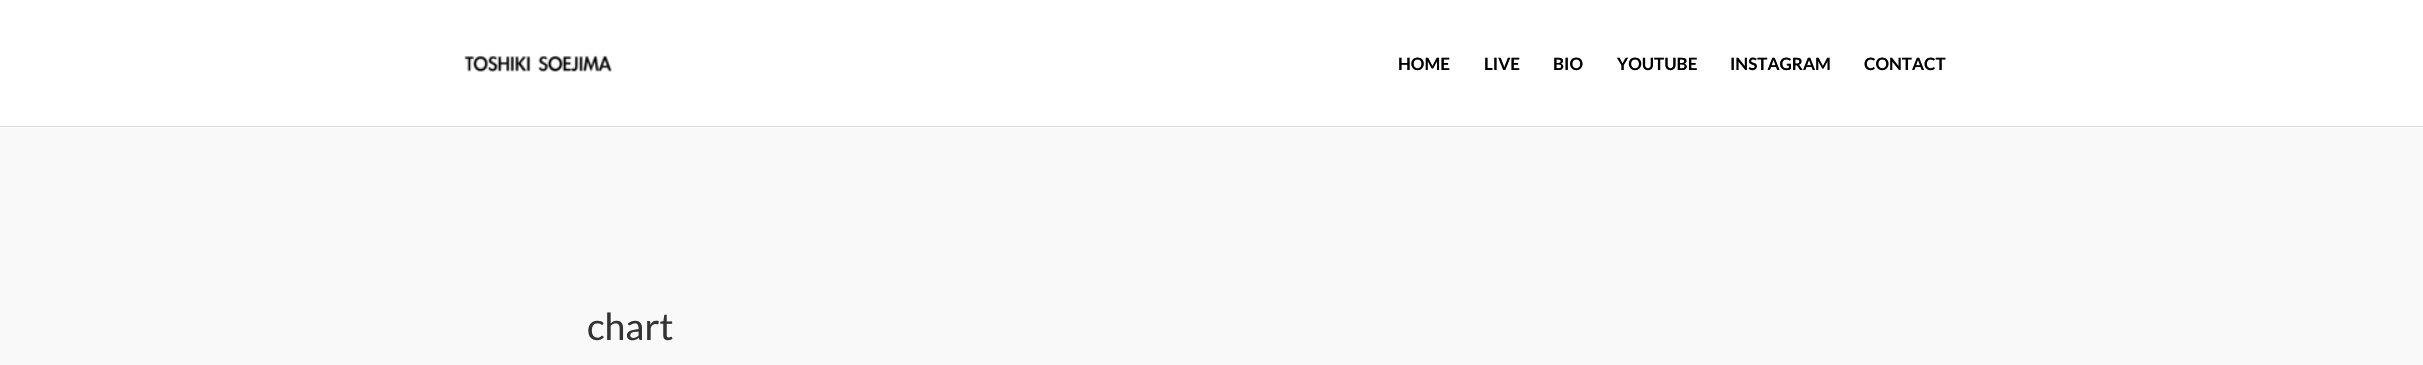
static SkFont makeFont(const char* family, int weight, float size, bool italic = false) {
  SkFontStyle style(weight, SkFontStyle::kNormal_Width,
    italic ? SkFontStyle::kItalic_Slant : SkFontStyle::kUpright_Slant);
  SkFont result(fontMgr->matchFamilyStyle(family, style), size);
  result.setSubpixel(true);
  return result;
}

static void text(SkCanvas* c, const char* s, float x, float y, const SkFont& font, SkColor color) {
  SkPaint ink(SkColor4f::FromColor(color));
  ink.setAntiAlias(true);
  c->drawString(s, x, y, font, ink);
}

static void box(SkCanvas* c, float l, float t, float r, float b, SkColor color) {
  SkPaint ink(SkColor4f::FromColor(color));
  ink.setAntiAlias(true);
  c->drawRect(SkRect::MakeLTRB(l, t, r, b), ink);
}

static void picture(SkCanvas* c, const char* path, float l, float t, float r, float b) {
  auto image = SkImages::DeferredFromEncodedData(SkData::MakeFromFileName(path));
  c->drawImageRect(image, SkRect::MakeLTRB(l, t, r, b), SkSamplingOptions());
}

void draw(SkCanvas* c) {
  SkPaint paint;
  paint.setAntiAlias(true);
  c->clear(0xfff9f9f9);
  box(c, 0, 0, 2423, 128, 0xffffffff);
  box(c, 0, 126, 2423, 127, 0xffdddddd);
  picture(c, "img_01.png", 464, 55, 613, 73);
  SkFont face1 = makeFont("Lato", 700, 17);
  text(c, "HOME", 1398, 70, face1, 0xff000000);
  text(c, "LIVE", 1484, 70, face1, 0xff000000);
  text(c, "BIO", 1553, 70, face1, 0xff000000);
  text(c, "YOUTUBE", 1617, 70, face1, 0xff000000);
  text(c, "INSTAGRAM", 1730, 70, face1, 0xff000000);
  text(c, "CONTACT", 1864, 70, face1, 0xff000000);
  SkFont face2 = makeFont("Lato", 400, 37.5f);
  text(c, "chart", 587, 340, face2, 0xff333333);
}
